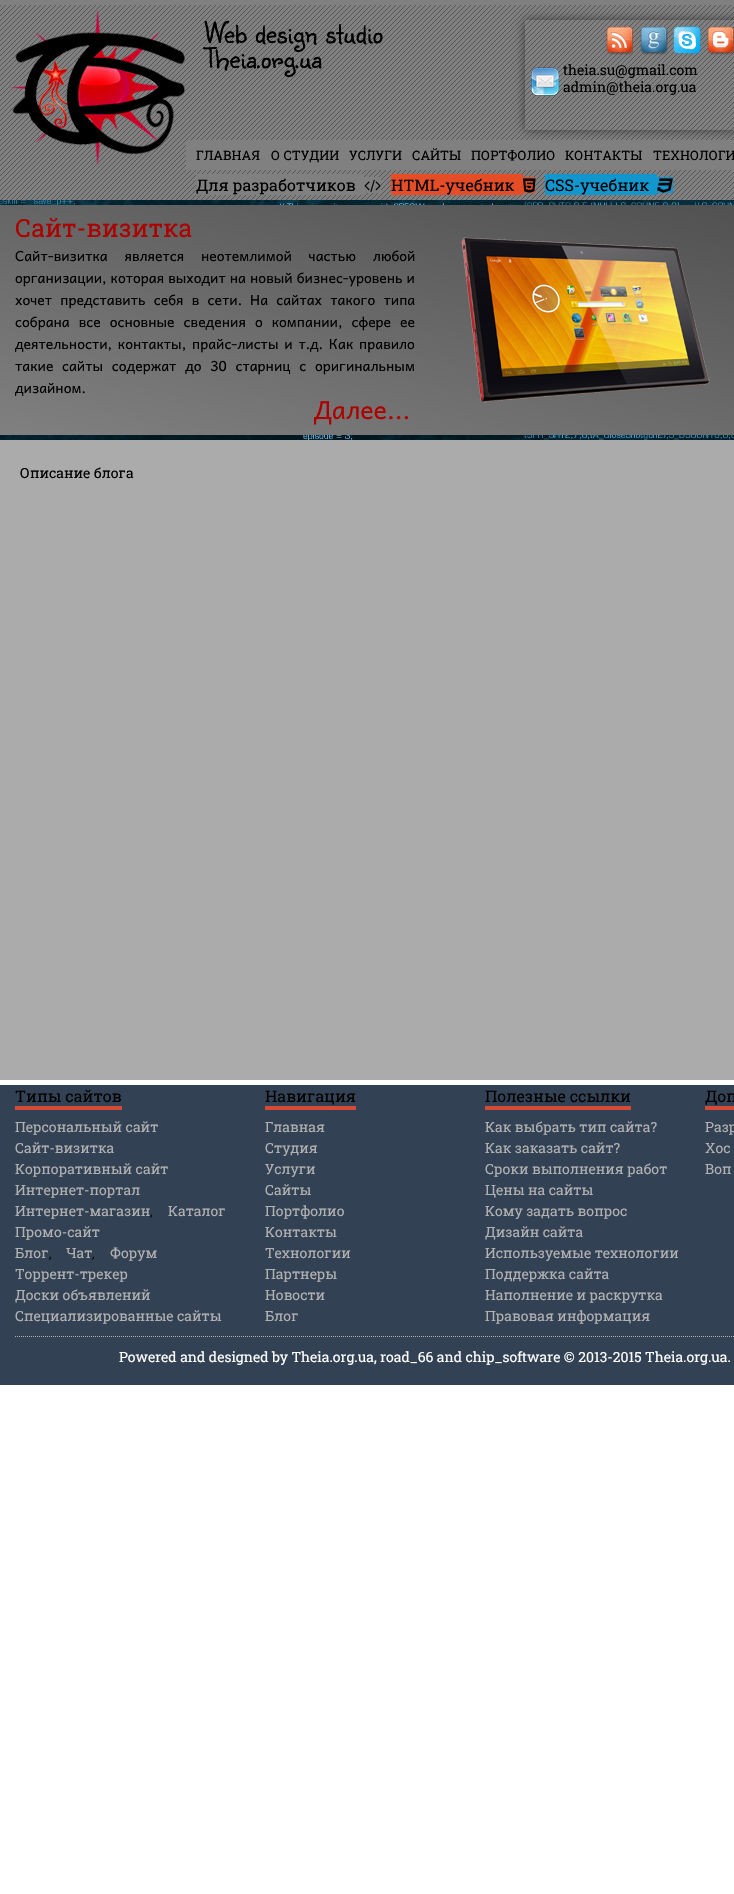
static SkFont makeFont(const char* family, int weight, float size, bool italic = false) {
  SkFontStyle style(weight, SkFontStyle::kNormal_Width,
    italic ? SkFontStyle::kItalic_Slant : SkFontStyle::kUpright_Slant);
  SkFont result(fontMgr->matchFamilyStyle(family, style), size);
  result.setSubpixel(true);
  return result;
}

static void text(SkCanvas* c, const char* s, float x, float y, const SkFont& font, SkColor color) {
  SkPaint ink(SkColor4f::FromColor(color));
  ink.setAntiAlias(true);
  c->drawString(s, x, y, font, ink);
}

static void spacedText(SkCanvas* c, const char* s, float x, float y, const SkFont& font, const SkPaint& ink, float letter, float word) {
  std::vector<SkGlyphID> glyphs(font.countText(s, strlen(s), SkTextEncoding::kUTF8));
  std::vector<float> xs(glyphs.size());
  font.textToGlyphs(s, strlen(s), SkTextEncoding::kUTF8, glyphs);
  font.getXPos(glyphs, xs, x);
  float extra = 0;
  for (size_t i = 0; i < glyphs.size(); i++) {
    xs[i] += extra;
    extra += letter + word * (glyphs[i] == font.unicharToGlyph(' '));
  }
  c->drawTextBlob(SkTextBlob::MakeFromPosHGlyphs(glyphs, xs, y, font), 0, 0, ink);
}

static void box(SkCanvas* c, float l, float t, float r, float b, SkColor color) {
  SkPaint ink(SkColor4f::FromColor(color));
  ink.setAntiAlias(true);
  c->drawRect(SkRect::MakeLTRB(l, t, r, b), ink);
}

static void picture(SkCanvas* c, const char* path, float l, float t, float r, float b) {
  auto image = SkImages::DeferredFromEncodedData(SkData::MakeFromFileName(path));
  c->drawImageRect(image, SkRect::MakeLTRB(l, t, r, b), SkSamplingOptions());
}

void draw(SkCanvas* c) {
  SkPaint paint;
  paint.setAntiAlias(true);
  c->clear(0xffffffff);
  picture(c, "img_01.png", 0, 200, 734, 440);
  box(c, 0, 0, 734, 200, 0xff808080);
  picture(c, "img_02.png", 0, 5, 734, 200);
  picture(c, "img_03.png", 10, 10, 185, 165);
  SkFont face1 = makeFont("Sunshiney", 400, 30);
  text(c, "Web design studio", 205, 43, face1, 0xff000000);
  text(c, "Theia.org.ua", 205, 68, face1, 0xff000000);
  c->save();
  c->clipPath(SkPathBuilder(SkPathFillType::kEvenOdd).moveTo(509, 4).lineTo(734, 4).lineTo(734, 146).lineTo(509, 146).close().moveTo(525, 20).lineTo(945, 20).lineTo(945, 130).lineTo(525, 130).close().detach(), true);
  paint.setColor(0x80000000);
  paint.setMaskFilter(SkMaskFilter::MakeBlur(kNormal_SkBlurStyle, 5));
  c->drawRect(SkRect::MakeLTRB(525, 20, 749, 130), paint);
  paint.setMaskFilter(nullptr);
  c->restore();
  picture(c, "img_04.png", 606, 27, 633, 55);
  picture(c, "img_05.png", 640, 27, 668, 55);
  picture(c, "img_06.png", 673, 26, 701, 54);
  picture(c, "img_07.png", 707, 27, 734, 55);
  picture(c, "img_08.png", 531, 67, 560, 96);
  SkFont face2 = makeFont("Roboto Slab", 400, 14);
  text(c, "theia.su@gmail.com", 563, 75, face2, 0xff000000);
  text(c, "admin@theia.org.ua", 563, 92, face2, 0xff000000);
  box(c, 186, 140, 734, 170, 0xff808080);
  SkFont face3 = makeFont("Roboto Slab", 400, 13);
  text(c, "ГЛАВНАЯ", 196, 160, face3, 0xff000000);
  text(c, "О СТУДИИ", 271, 160, face3, 0xff000000);
  text(c, "УСЛУГИ", 349, 160, face3, 0xff000000);
  text(c, "САЙТЫ", 412, 160, face3, 0xff000000);
  text(c, "ПОРТФОЛИО", 471, 160, face3, 0xff000000);
  text(c, "КОНТАКТЫ", 565, 160, face3, 0xff000000);
  text(c, "ТЕХНОЛОГИ", 653, 160, face3, 0xff000000);
  box(c, 196, 174, 364, 195, 0xff808080);
  box(c, 364, 177, 381, 193, 0xff808080);
  SkFont face4 = makeFont("Roboto Slab", 400, 16);
  text(c, "Для разработчиков", 196, 191, face4, 0xff000000);
  picture(c, "img_09.png", 364, 179, 381, 192);
  box(c, 391, 174, 523, 195, 0xffe54d26);
  box(c, 523, 177, 535, 193, 0xffe54d26);
  text(c, "HTML-учебник", 391, 191, face4, 0xff000000);
  picture(c, "img_10.png", 523, 178, 536, 193);
  box(c, 545, 174, 657, 195, 0xff1196ce);
  box(c, 657, 177, 673, 193, 0xff1196ce);
  text(c, "CSS-учебник", 545, 191, face4, 0xff000000);
  picture(c, "img_11.png", 657, 178, 673, 193);
  {
    const SkColor colors[] = {0xff808080, 0xff4c4b4b};
    const float stops[] = {0, 1};
    const SkPoint ends[] = {{428, 538}, {532, 102}};
    paint.setShader(SkGradientShader::MakeLinear(ends, colors, stops, 2, SkTileMode::kClamp));
    paint.setAlpha(255);
  }
  c->drawRect(SkRect::MakeLTRB(0, 205, 734, 435), paint);
  SkFont face5 = makeFont("Roboto Slab", 400, 25);
  text(c, "Сайт-визитка", 15, 237, face5, 0xffac0000);
  SkFont face6 = makeFont("Andika", 400, 14);
  paint.setShader(nullptr);
  paint.setColor(0xff000000);
  spacedText(c, "Сайт-визитка является неотемлимой частью любой", 15, 261, face6, paint, 0, 13);
  spacedText(c, "организации, которая выходит на новый бизнес-уровень и", 15, 283, face6, paint, 0, 0.25f);
  spacedText(c, "хочет представить себя в сети.", 15, 305, face6, paint, 0, 4.5f);
  spacedText(c, "На сайтах такого типа", 250, 305, face6, paint, 0, 4.5f);
  spacedText(c, "собрана все основные сведения о компании, сфере ее", 15, 327, face6, paint, 0, 5.25f);
  spacedText(c, "деятельности, контакты, прайс-листы и т.д. Как правило", 15, 349, face6, paint, 0, 2);
  text(c, "такие", 15, 371, face6, 0xff000000);
  spacedText(c, "сайты содержат до 30 старниц с оригинальным", 62, 371, face6, paint, 0, 5);
  text(c, "дизайном.", 15, 393, face6, 0xff000000);
  SkFont face7 = makeFont("Andika", 400, 25);
  text(c, "Далее...", 313, 419, face7, 0xffac0000);
  picture(c, "img_12.png", 461, 237, 710, 403);
  box(c, 0, 440, 734, 1080, 0xffababab);
  text(c, "Описание блога", 20, 478, face2, 0xff000000);
  box(c, 0, 1085, 734, 1385, 0xff334154);
  text(c, "Типы сайтов", 15, 1102, face4, 0xff000000);
  box(c, 15, 1106, 122, 1110, 0xffd44b38);
  text(c, "Персональный сайт", 15, 1132, face2, 0xffb1b1b1);
  text(c, "Сайт-визитка", 15, 1153, face2, 0xffb1b1b1);
  text(c, "Корпоративный сайт", 15, 1174, face2, 0xffb1b1b1);
  text(c, "Интернет-портал", 15, 1195, face2, 0xffb1b1b1);
  text(c, "Интернет-магазин", 15, 1216, face2, 0xffb1b1b1);
  SkFont face8 = makeFont("Roboto Slab", 400, 12);
  text(c, ",", 150, 1216, face8, 0xff000000);
  text(c, "Каталог", 168, 1216, face2, 0xffb1b1b1);
  text(c, "Промо-сайт", 15, 1237, face2, 0xffb1b1b1);
  text(c, "Блог", 15, 1258, face2, 0xffb1b1b1);
  text(c, ",", 49, 1258, face8, 0xff000000);
  text(c, "Чат", 66, 1258, face2, 0xffb1b1b1);
  text(c, ",", 92, 1258, face8, 0xff000000);
  text(c, "Форум", 110, 1258, face2, 0xffb1b1b1);
  text(c, "Торрент-трекер", 15, 1279, face2, 0xffb1b1b1);
  text(c, "Доски объявлений", 15, 1300, face2, 0xffb1b1b1);
  text(c, "Специализированные сайты", 15, 1321, face2, 0xffb1b1b1);
  text(c, "Навигация", 265, 1102, face4, 0xff000000);
  box(c, 265, 1106, 356, 1110, 0xffd44b38);
  text(c, "Главная", 265, 1132, face2, 0xffb1b1b1);
  text(c, "Студия", 265, 1153, face2, 0xffb1b1b1);
  text(c, "Услуги", 265, 1174, face2, 0xffb1b1b1);
  text(c, "Сайты", 265, 1195, face2, 0xffb1b1b1);
  text(c, "Портфолио", 265, 1216, face2, 0xffb1b1b1);
  text(c, "Контакты", 265, 1237, face2, 0xffb1b1b1);
  text(c, "Технологии", 265, 1258, face2, 0xffb1b1b1);
  text(c, "Партнеры", 265, 1279, face2, 0xffb1b1b1);
  text(c, "Новости", 265, 1300, face2, 0xffb1b1b1);
  text(c, "Блог", 265, 1321, face2, 0xffb1b1b1);
  text(c, "Полезные ссылки", 485, 1102, face4, 0xff000000);
  box(c, 485, 1106, 631, 1110, 0xffd44b38);
  text(c, "Как выбрать тип сайта?", 485, 1132, face2, 0xffb1b1b1);
  text(c, "Как заказать сайт?", 485, 1153, face2, 0xffb1b1b1);
  text(c, "Сроки выполнения работ", 485, 1174, face2, 0xffb1b1b1);
  text(c, "Цены на сайты", 485, 1195, face2, 0xffb1b1b1);
  text(c, "Кому задать вопрос", 485, 1216, face2, 0xffb1b1b1);
  text(c, "Дизайн сайта", 485, 1237, face2, 0xffb1b1b1);
  text(c, "Используемые технологии", 485, 1258, face2, 0xffb1b1b1);
  text(c, "Поддержка сайта", 485, 1279, face2, 0xffb1b1b1);
  text(c, "Наполнение и раскрутка", 485, 1300, face2, 0xffb1b1b1);
  text(c, "Правовая информация", 485, 1321, face2, 0xffb1b1b1);
  text(c, "Доп", 705, 1102, face4, 0xff000000);
  box(c, 705, 1106, 734, 1110, 0xffd44b38);
  text(c, "Разр", 705, 1132, face2, 0xffb1b1b1);
  text(c, "Хос", 705, 1153, face2, 0xffb1b1b1);
  text(c, "Воп", 705, 1174, face2, 0xffb1b1b1);
  paint.setStyle(SkPaint::kStroke_Style);
  paint.setStrokeWidth(1);
  paint.setColor(0xffb1b1b1);
  paint.setPathEffect(SkDashPathEffect::Make({{1, 1}}, 0));
  c->drawPath(SkPathBuilder().moveTo(15, 1336.5f).lineTo(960, 1336.5f).detach(), paint);
  paint.setPathEffect(nullptr);
  text(c, "Powered and designed by Theia.org.ua, road_66 and chip_software © 2013-2015 Theia.org.ua.", 119, 1362, face2, 0xffffffff);
}
